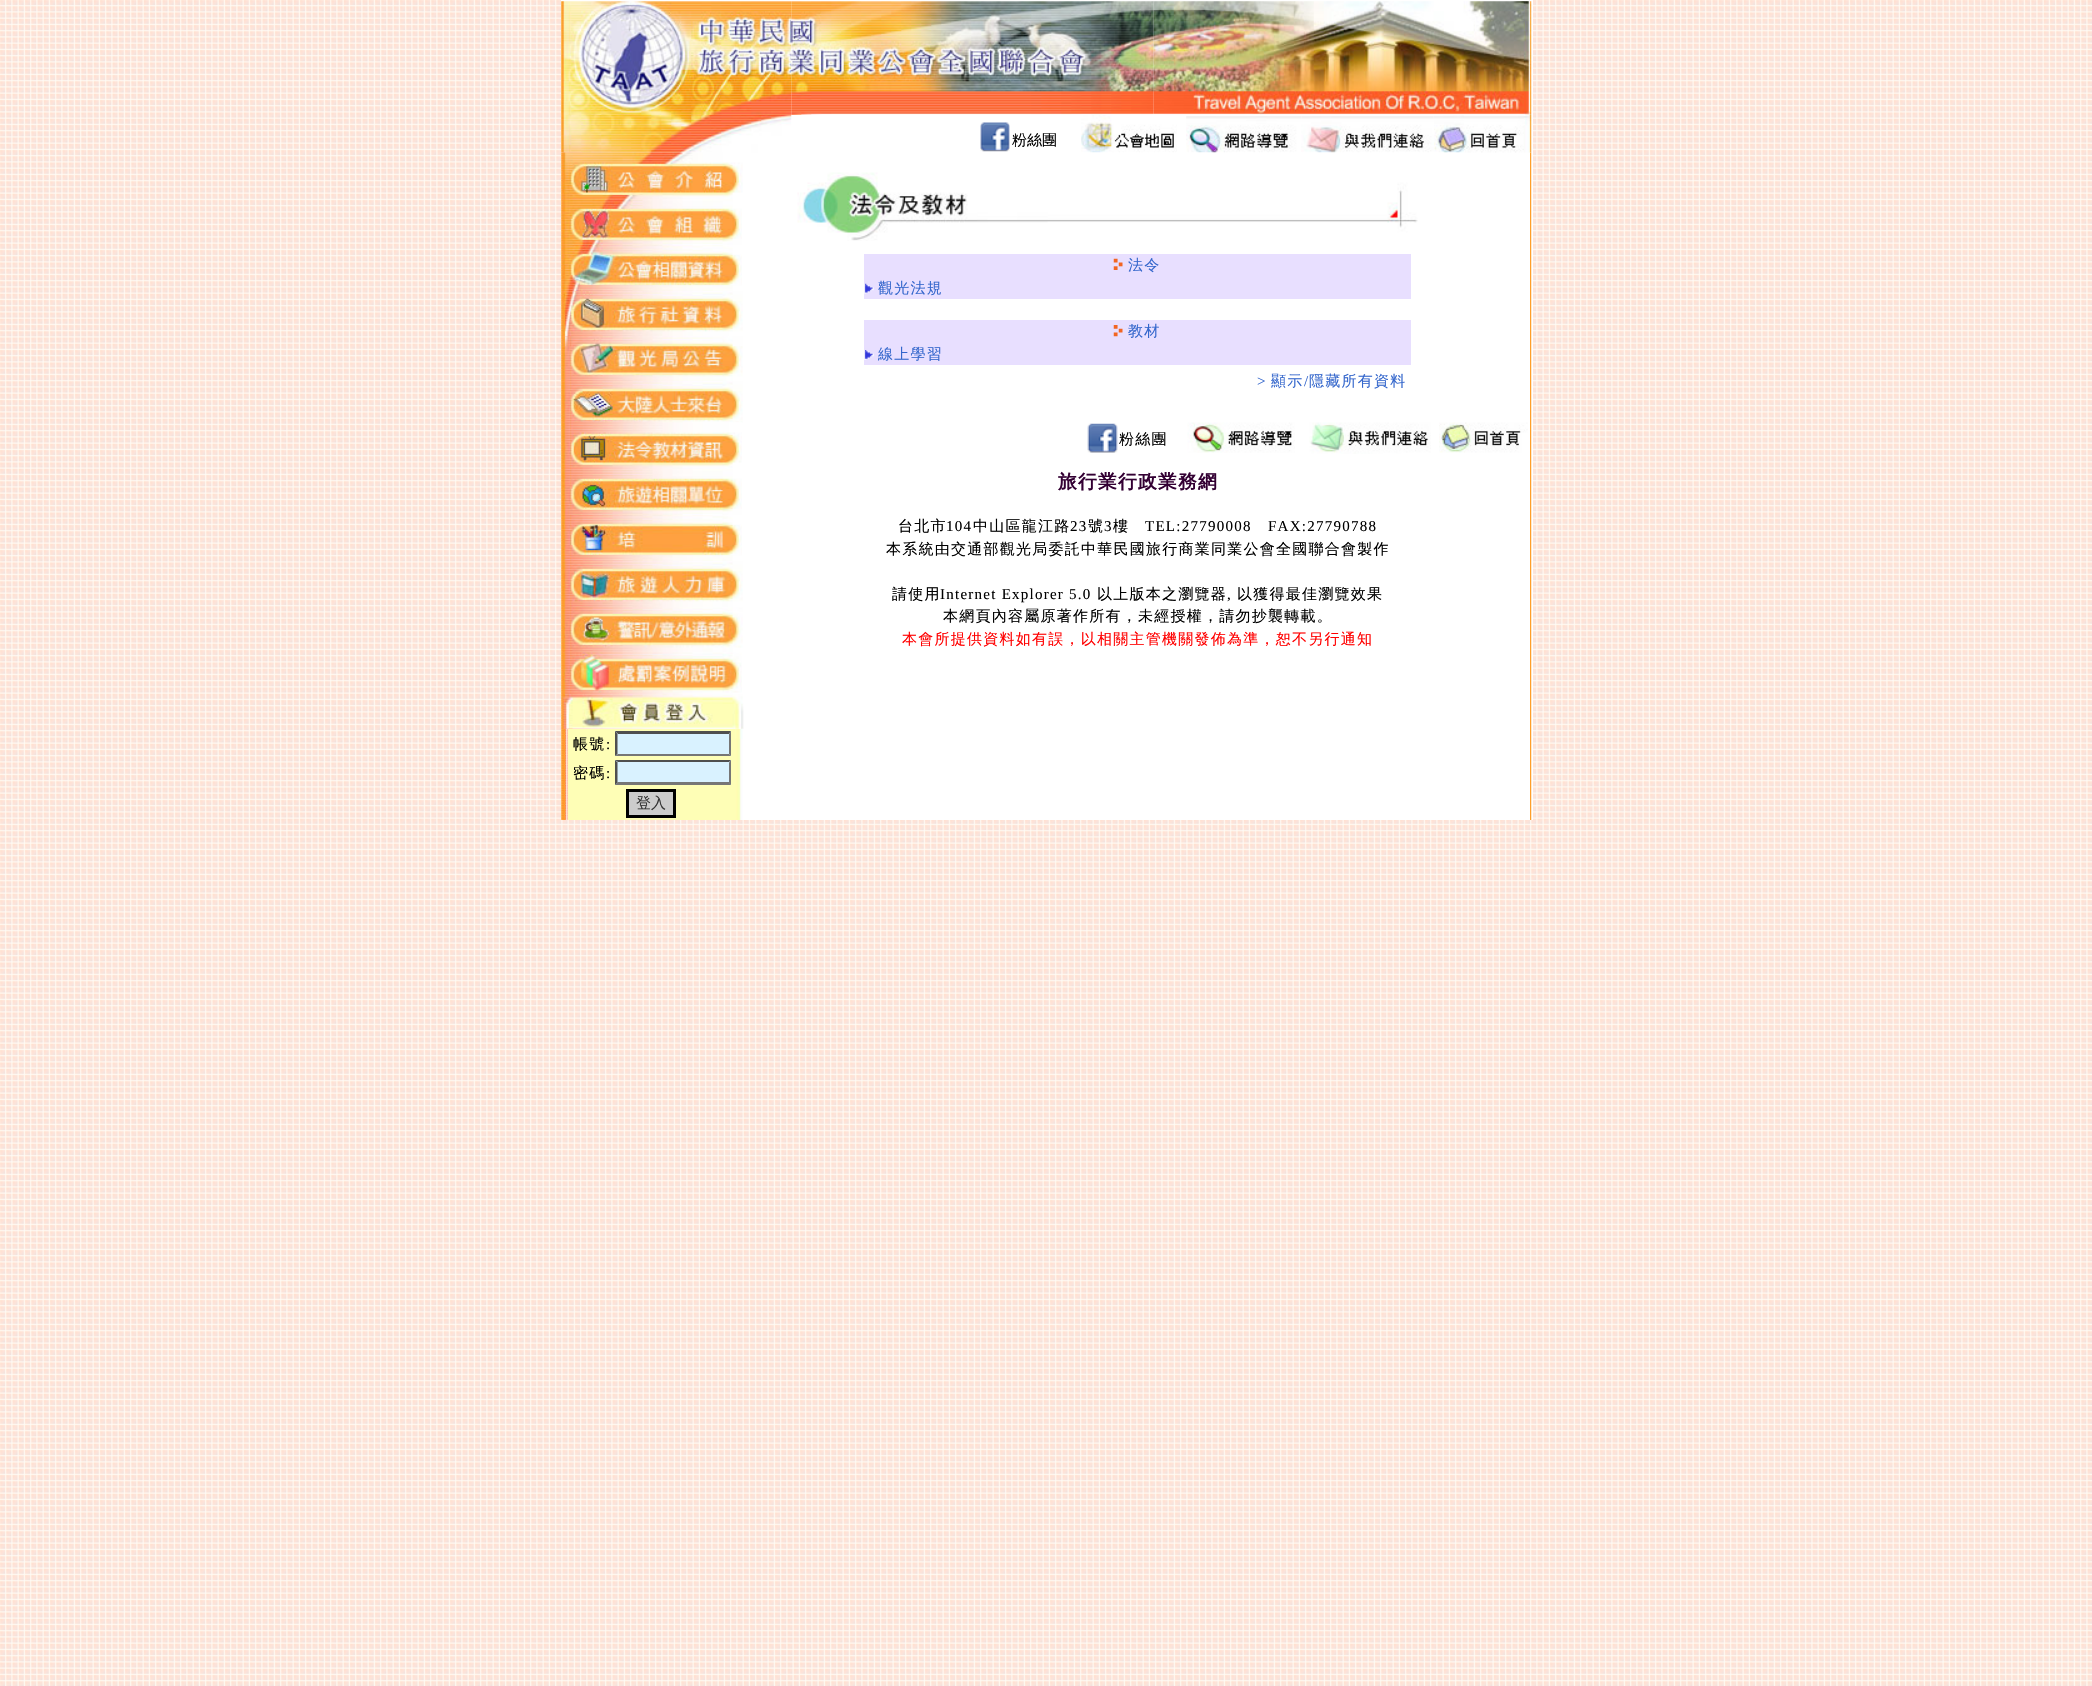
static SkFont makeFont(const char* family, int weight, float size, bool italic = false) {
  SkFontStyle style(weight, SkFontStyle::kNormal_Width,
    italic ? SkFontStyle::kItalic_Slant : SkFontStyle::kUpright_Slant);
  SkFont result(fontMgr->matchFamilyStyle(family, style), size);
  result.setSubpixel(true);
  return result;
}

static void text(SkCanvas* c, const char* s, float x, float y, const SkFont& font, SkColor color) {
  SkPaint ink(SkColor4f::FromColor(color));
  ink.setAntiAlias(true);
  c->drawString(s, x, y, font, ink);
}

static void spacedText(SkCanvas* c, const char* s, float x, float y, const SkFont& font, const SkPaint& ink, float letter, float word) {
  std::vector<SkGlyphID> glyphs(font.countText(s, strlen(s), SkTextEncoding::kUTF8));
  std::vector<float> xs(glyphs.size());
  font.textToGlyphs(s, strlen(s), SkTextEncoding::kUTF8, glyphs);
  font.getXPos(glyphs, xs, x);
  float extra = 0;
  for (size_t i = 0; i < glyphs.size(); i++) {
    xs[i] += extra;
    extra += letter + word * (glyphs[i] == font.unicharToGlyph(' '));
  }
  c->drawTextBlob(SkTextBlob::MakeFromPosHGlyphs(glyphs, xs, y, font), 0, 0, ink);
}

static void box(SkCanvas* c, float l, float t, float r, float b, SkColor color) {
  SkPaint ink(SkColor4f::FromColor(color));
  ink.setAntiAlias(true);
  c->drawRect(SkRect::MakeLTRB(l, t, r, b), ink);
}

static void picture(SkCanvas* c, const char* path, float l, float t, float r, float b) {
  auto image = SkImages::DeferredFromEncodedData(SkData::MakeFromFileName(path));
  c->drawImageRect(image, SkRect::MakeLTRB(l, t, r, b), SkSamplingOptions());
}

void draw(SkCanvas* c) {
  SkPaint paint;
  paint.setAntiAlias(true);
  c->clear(0xffffffff);
  picture(c, "img_01.png", 0, 0, 2092, 1686);
  box(c, 561, 0, 1533, 820, 0xffffffff);
  picture(c, "img_02.png", 561, 1, 792, 115);
  picture(c, "img_03.png", 791, 1, 1154, 115);
  picture(c, "img_04.png", 1153, 1, 1532, 115);
  picture(c, "img_21.png", 561, 152, 692, 820);
  picture(c, "img_05.png", 561, 115, 792, 153);
  picture(c, "img_06.png", 980, 122, 1010, 152);
  SkFont face1 = makeFont("WenQuanYi Zen Hei", 500, 15);
  text(c, "粉絲團", 1012, 145, face1, 0xff000000);
  picture(c, "img_07.png", 1081, 115, 1177, 153);
  picture(c, "img_08.png", 1186, 116, 1301, 153);
  picture(c, "img_09.png", 1301, 116, 1434, 153);
  picture(c, "img_20.png", 1530, 152, 1532, 820);
  picture(c, "img_10.png", 1434, 115, 1532, 153);
  picture(c, "img_11.png", 797, 152, 1461, 241);
  box(c, 864, 254, 1411, 299, 0xffe8dfff);
  picture(c, "img_12.png", 1113, 258, 1123, 270);
  paint.setColor(0xff3366cc);
  spacedText(c, "法令", 1128, 270, face1, paint, 1.25f, 0);
  picture(c, "img_13.png", 864, 283, 874, 294);
  spacedText(c, "觀光法規", 878, 293, face1, paint, 1.25f, 0);
  box(c, 864, 320, 1411, 365, 0xffe8dfff);
  picture(c, "img_14.png", 1113, 325, 1123, 337);
  spacedText(c, "教材", 1128, 336, face1, paint, 1.25f, 0);
  picture(c, "img_15.png", 864, 350, 874, 360);
  spacedText(c, "線上學習", 878, 359, face1, paint, 1.25f, 0);
  SkFont face2 = makeFont("Liberation Serif", 400, 15);
  spacedText(c, ">", 1257, 386, face2, paint, 1.25f, 0);
  spacedText(c, "顯示", 1271, 386, face1, paint, 1.25f, 0);
  spacedText(c, "/", 1304, 386, face2, paint, 1.25f, 0);
  spacedText(c, "隱藏所有資料", 1309, 386, face1, paint, 1.25f, 0);
  picture(c, "img_16.png", 1087, 423, 1118, 453);
  paint.setColor(0xff000000);
  spacedText(c, "粉絲團", 1119, 444, face1, paint, 1.25f, 0);
  picture(c, "img_17.png", 1187, 422, 1295, 453);
  picture(c, "img_18.png", 1309, 422, 1431, 454);
  picture(c, "img_19.png", 1439, 422, 1528, 453);
  SkFont face3 = makeFont("WenQuanYi Zen Hei", 700, 18.75f);
  paint.setColor(0xff330033);
  spacedText(c, "旅行業行政業務網", 1058, 488, face3, paint, 1.25f, 0);
  paint.setColor(0xff000000);
  spacedText(c, "台北市", 898, 531, face1, paint, 1.25f, 0);
  spacedText(c, "104", 946, 531, face2, paint, 1.25f, 0);
  spacedText(c, "中山區龍江路", 973, 531, face1, paint, 1.25f, 0);
  spacedText(c, "23", 1070, 531, face2, paint, 1.25f, 0);
  spacedText(c, "號", 1088, 531, face1, paint, 1.25f, 0);
  spacedText(c, "3", 1104, 531, face2, paint, 1.25f, 0);
  spacedText(c, "樓", 1113, 531, face1, paint, 1.25f, 0);
  spacedText(c, "TEL:27790008", 1145, 531, face2, paint, 1.25f, 0);
  spacedText(c, "FAX:27790788", 1268, 531, face2, paint, 1.25f, 0);
  spacedText(c, "本系統由交通部觀光局委託中華民國旅行商業同業公會全國聯合會製作", 886, 554, face1, paint, 1.25f, 0);
  spacedText(c, "請使用", 892, 599, face1, paint, 1.25f, 0);
  spacedText(c, "Internet Explorer 5.0", 940, 599, face2, paint, 1.25f, 0);
  spacedText(c, "以上版本之瀏覽器", 1097, 599, face1, paint, 1.25f, 0);
  spacedText(c, ",", 1227, 599, face2, paint, 1.25f, 0);
  spacedText(c, "以獲得最佳瀏覽效果", 1237, 599, face1, paint, 1.25f, 0);
  spacedText(c, "本網頁內容屬原著作所有，未經授權，請勿抄襲轉載。", 943, 621, face1, paint, 1.25f, 0);
  paint.setColor(0xffff0000);
  spacedText(c, "本會所提供資料如有誤，以相關主管機關發佈為準，恕不另行通知", 902, 644, face1, paint, 1.25f, 0);
  picture(c, "img_22.png", 562, 152, 743, 199);
  picture(c, "img_23.png", 562, 198, 742, 245);
  picture(c, "img_24.png", 562, 245, 742, 292);
  picture(c, "img_25.png", 562, 291, 743, 337);
  picture(c, "img_26.png", 562, 336, 743, 382);
  picture(c, "img_27.png", 562, 381, 743, 423);
  picture(c, "img_28.png", 562, 422, 742, 469);
  picture(c, "img_29.png", 562, 468, 742, 515);
  picture(c, "img_30.png", 562, 515, 742, 562);
  picture(c, "img_31.png", 562, 561, 743, 608);
  picture(c, "img_32.png", 562, 607, 743, 653);
  picture(c, "img_33.png", 562, 652, 742, 694);
  picture(c, "img_35.png", 562, 728, 568, 820);
  picture(c, "img_36.png", 735, 728, 743, 820);
  picture(c, "img_34.png", 562, 693, 744, 729);
  box(c, 568, 729, 735, 820, 0xfffefeb6);
  paint.setColor(0xff000000);
  spacedText(c, "帳號", 573, 749, face1, paint, 1.25f, 0);
  spacedText(c, ":", 606, 749, face2, paint, 1.25f, 0);
  box(c, 615, 731, 731, 756, 0xffd9f2ff);
  paint.setColor(0xff4f4f4f);
  c->drawPath(SkPathBuilder().moveTo(615, 731).lineTo(731, 731).lineTo(729, 734).lineTo(618, 734).close().detach(), paint);
  paint.setColor(0xff767676);
  c->drawPath(SkPathBuilder().moveTo(731, 731).lineTo(731, 756).lineTo(729, 754).lineTo(729, 734).close().detach(), paint);
  c->drawPath(SkPathBuilder().moveTo(731, 756).lineTo(615, 756).lineTo(618, 754).lineTo(729, 754).close().detach(), paint);
  paint.setColor(0xff4f4f4f);
  c->drawPath(SkPathBuilder().moveTo(615, 756).lineTo(615, 731).lineTo(617.5f, 734).lineTo(617.5f, 754).close().detach(), paint);
  paint.setColor(0xff000000);
  spacedText(c, "密碼", 573, 778, face1, paint, 1.25f, 0);
  spacedText(c, ":", 606, 778, face2, paint, 1.25f, 0);
  box(c, 615, 760, 731, 785, 0xffd9f2ff);
  paint.setColor(0xff4f4f4f);
  c->drawPath(SkPathBuilder().moveTo(615, 760).lineTo(731, 760).lineTo(729, 762).lineTo(618, 762).close().detach(), paint);
  paint.setColor(0xff767676);
  c->drawPath(SkPathBuilder().moveTo(731, 760).lineTo(731, 785).lineTo(729, 782.5f).lineTo(729, 762.5f).close().detach(), paint);
  c->drawPath(SkPathBuilder().moveTo(731, 785).lineTo(615, 785).lineTo(618, 782).lineTo(729, 782).close().detach(), paint);
  paint.setColor(0xff4f4f4f);
  c->drawPath(SkPathBuilder().moveTo(615, 785).lineTo(615, 760).lineTo(617.5f, 762.5f).lineTo(617.5f, 782.5f).close().detach(), paint);
  paint.setColor(0xffcccccc);
  c->drawRect(SkRect::MakeLTRB(627.5f, 790.5f, 674.5f, 816.5f), paint);
  paint.setStyle(SkPaint::kStroke_Style);
  paint.setStrokeWidth(3);
  paint.setColor(0xff000000);
  c->drawRect(SkRect::MakeLTRB(627.5f, 790.5f, 674.5f, 816.5f), paint);
  text(c, "登入", 636, 808, face1, 0xff333333);
}
